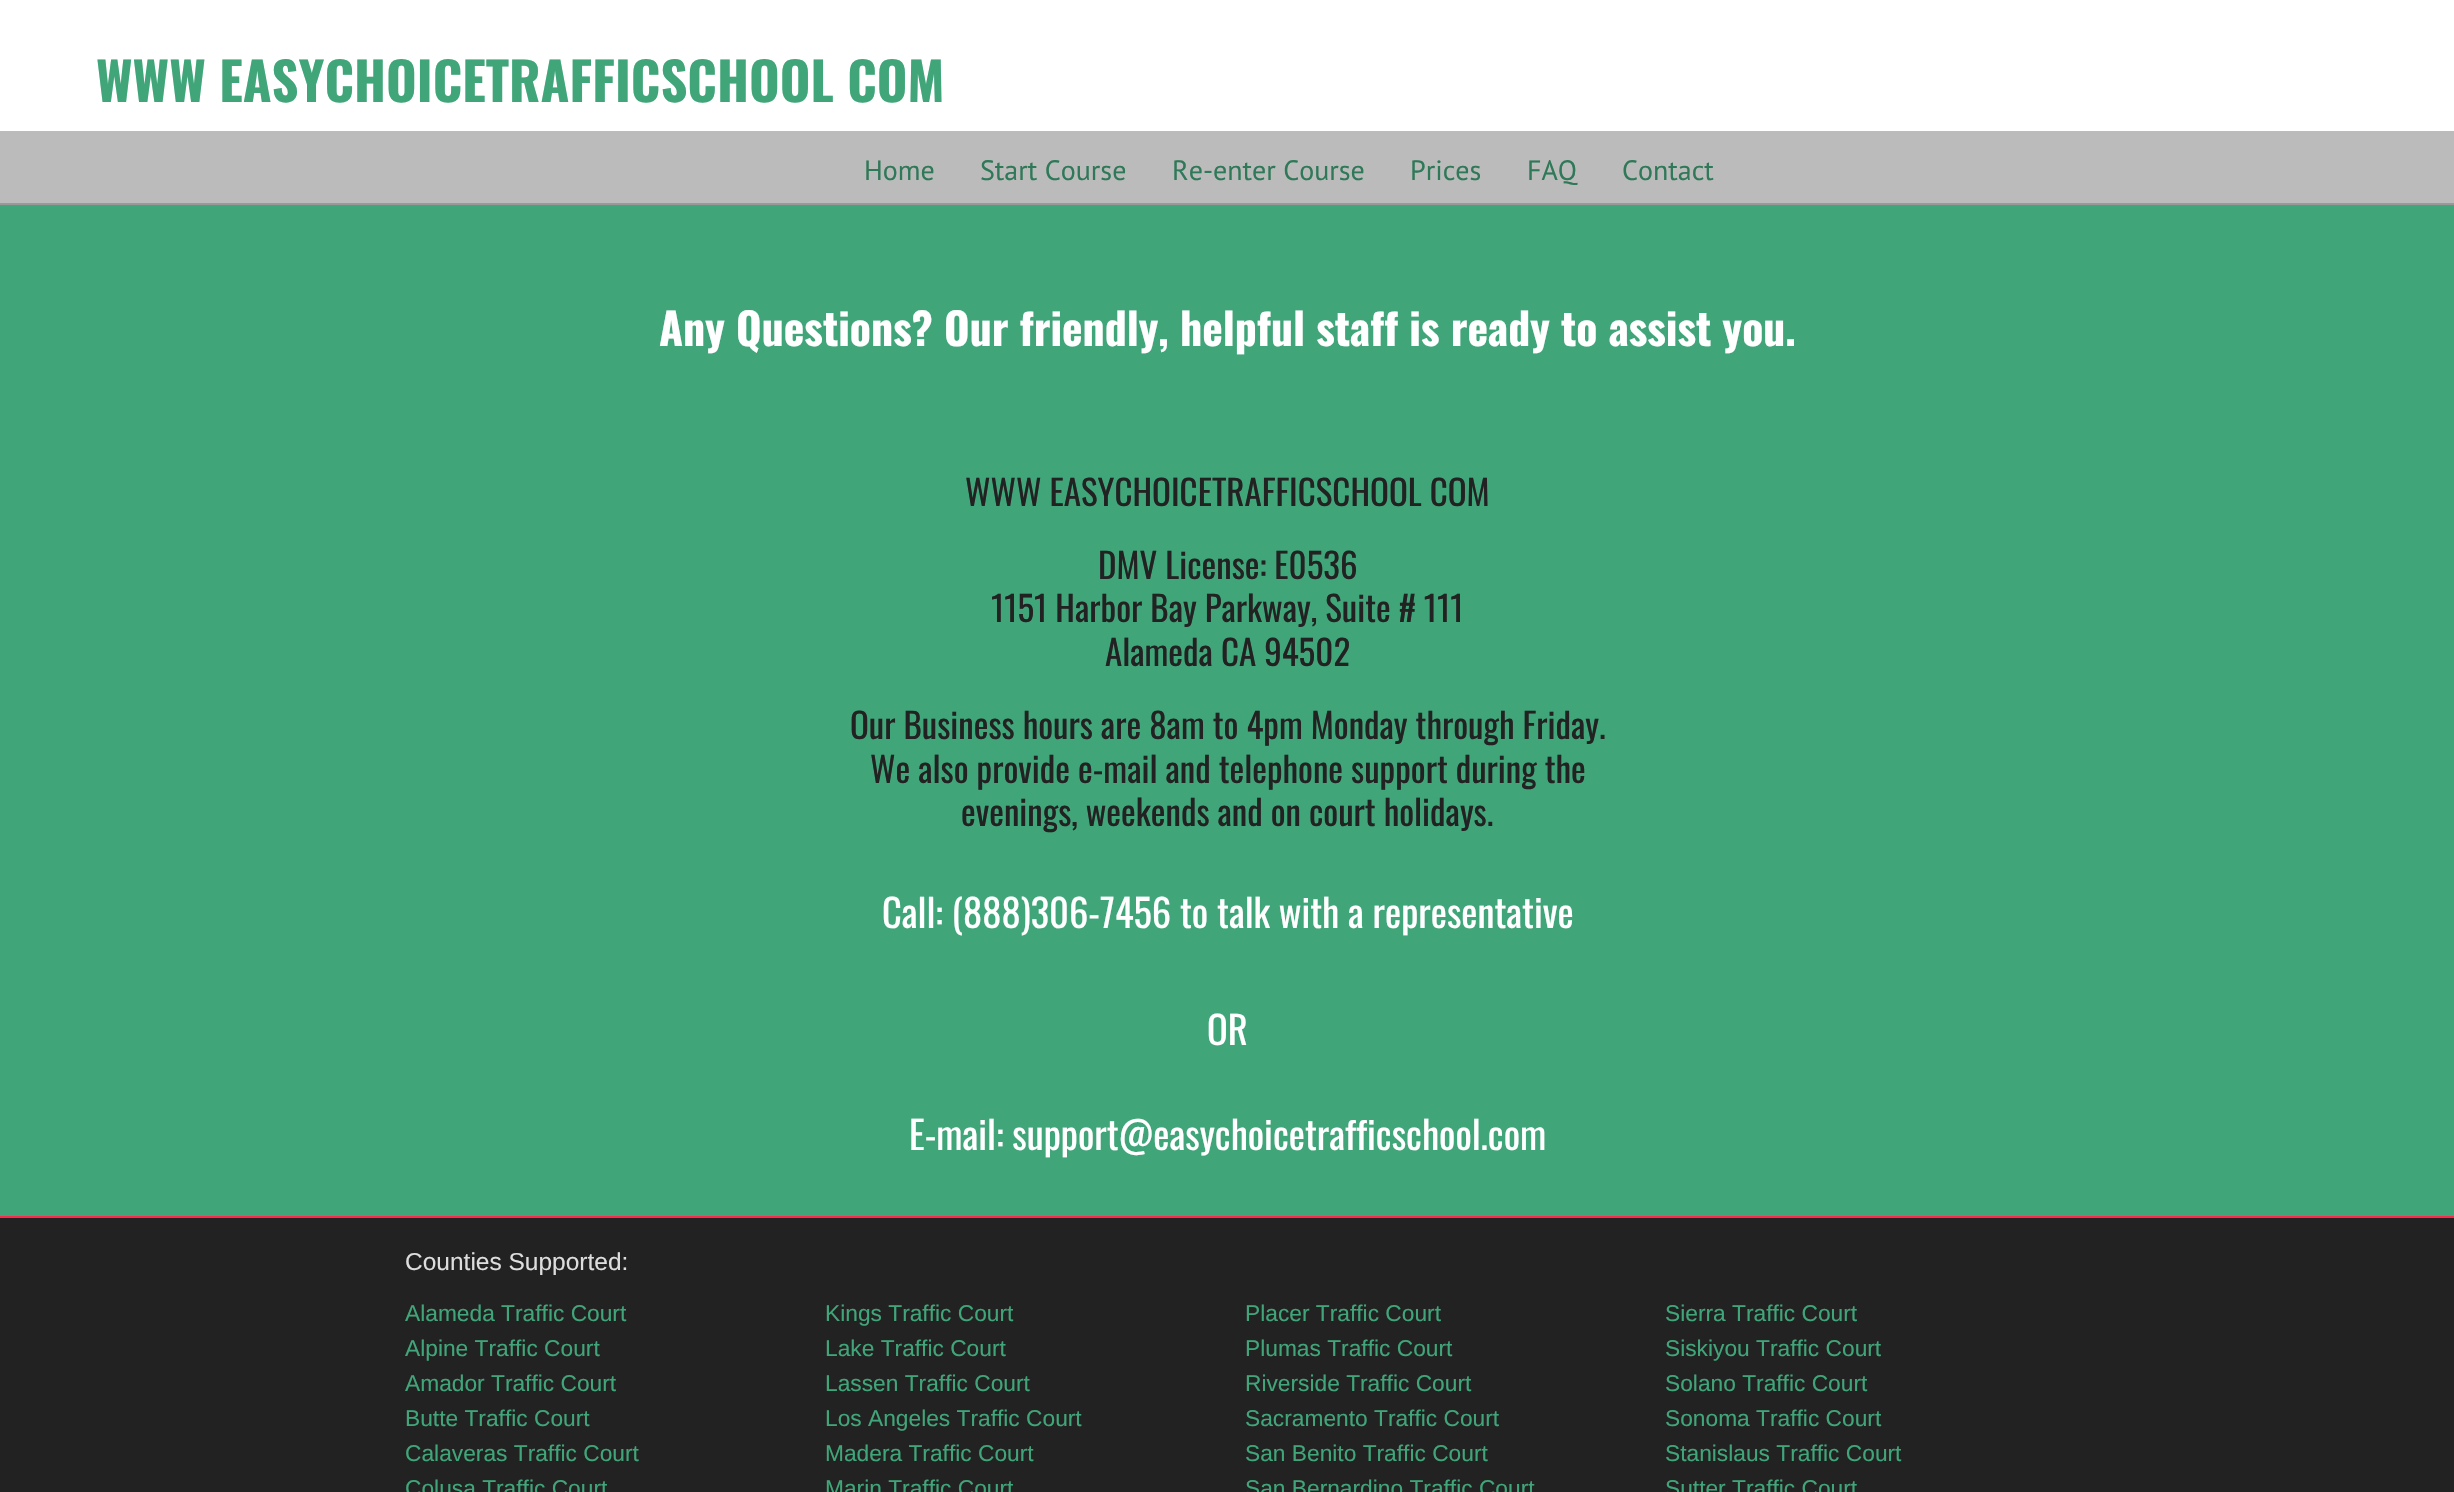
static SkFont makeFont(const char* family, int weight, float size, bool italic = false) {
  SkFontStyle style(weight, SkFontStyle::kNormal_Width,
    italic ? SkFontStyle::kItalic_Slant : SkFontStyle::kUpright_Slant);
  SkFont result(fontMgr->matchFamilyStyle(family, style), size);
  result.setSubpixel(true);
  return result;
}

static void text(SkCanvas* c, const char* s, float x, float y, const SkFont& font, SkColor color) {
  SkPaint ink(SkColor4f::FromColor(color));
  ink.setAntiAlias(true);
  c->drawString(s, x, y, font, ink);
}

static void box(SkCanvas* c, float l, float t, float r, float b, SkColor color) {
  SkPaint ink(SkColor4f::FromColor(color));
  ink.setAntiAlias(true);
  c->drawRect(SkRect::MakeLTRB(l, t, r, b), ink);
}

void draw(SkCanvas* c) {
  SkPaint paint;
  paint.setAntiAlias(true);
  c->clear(0xffffffff);
  SkFont face1 = makeFont("Oswald", 700, 52.5f);
  text(c, "WWW EASYCHOICETRAFFICSCHOOL COM", 96, 102, face1, 0xff40a579);
  box(c, 0, 131, 2454, 203, 0xffbbbbbb);
  box(c, 0, 203, 2454, 205, 0xff999999);
  SkFont face2 = makeFont("PT Sans", 400, 28);
  text(c, "Home", 864, 180, face2, 0xff2f7858);
  text(c, "Start Course", 980, 180, face2, 0xff2f7858);
  text(c, "Re-enter Course", 1172, 180, face2, 0xff2f7858);
  text(c, "Prices", 1410, 180, face2, 0xff2f7858);
  text(c, "FAQ", 1527, 180, face2, 0xff2f7858);
  text(c, "Contact", 1622, 180, face2, 0xff2f7858);
  box(c, 0, 205, 2454, 1216, 0xff40a579);
  SkFont face3 = makeFont("Oswald", 700, 43.75f);
  text(c, "Any Questions? Our friendly, helpful staff is ready to assist you.", 659, 346, face3, 0xffffffff);
  SkFont face4 = makeFont("Oswald", 400, 35);
  text(c, "WWW EASYCHOICETRAFFICSCHOOL COM", 965, 506, face4, 0xff222222);
  text(c, "DMV License: E0536", 1098, 579, face4, 0xff222222);
  text(c, "1151 Harbor Bay Parkway, Suite # 111", 991, 622, face4, 0xff222222);
  text(c, "Alameda CA 94502", 1105, 666, face4, 0xff222222);
  text(c, "Our Business hours are 8am to 4pm Monday through Friday.", 850, 739, face4, 0xff222222);
  text(c, "We also provide e-mail and telephone support during the", 870, 783, face4, 0xff222222);
  text(c, "evenings, weekends and on court holidays.", 961, 826, face4, 0xff222222);
  SkFont face5 = makeFont("Oswald", 400, 38.5f);
  text(c, "Call: (888)306-7456 to talk with a representative", 882, 928, face5, 0xffffffff);
  text(c, "OR", 1207, 1045, face5, 0xffffffff);
  text(c, "E-mail: support@easychoicetrafficschool.com", 909, 1150, face5, 0xffffffff);
  box(c, 0, 1218, 2454, 1492, 0xff222222);
  box(c, 0, 1216, 2454, 1218, 0xffff284b);
  SkFont face6 = makeFont("Liberation Sans", 400, 24.5f);
  text(c, "Counties Supported:", 405, 1270, face6, 0xffdddddd);
  SkFont face7 = makeFont("Liberation Sans", 400, 22.75f);
  text(c, "Alameda Traffic Court", 405, 1321, face7, 0xff40a579);
  text(c, "Alpine Traffic Court", 405, 1356, face7, 0xff40a579);
  text(c, "Amador Traffic Court", 405, 1391, face7, 0xff40a579);
  text(c, "Butte Traffic Court", 405, 1426, face7, 0xff40a579);
  text(c, "Calaveras Traffic Court", 405, 1461, face7, 0xff40a579);
  text(c, "Colusa Traffic Court", 405, 1496, face7, 0xff40a579);
  text(c, "Kings Traffic Court", 825, 1321, face7, 0xff40a579);
  text(c, "Lake Traffic Court", 825, 1356, face7, 0xff40a579);
  text(c, "Lassen Traffic Court", 825, 1391, face7, 0xff40a579);
  text(c, "Los Angeles Traffic Court", 825, 1426, face7, 0xff40a579);
  text(c, "Madera Traffic Court", 825, 1461, face7, 0xff40a579);
  text(c, "Marin Traffic Court", 825, 1496, face7, 0xff40a579);
  text(c, "Placer Traffic Court", 1245, 1321, face7, 0xff40a579);
  text(c, "Plumas Traffic Court", 1245, 1356, face7, 0xff40a579);
  text(c, "Riverside Traffic Court", 1245, 1391, face7, 0xff40a579);
  text(c, "Sacramento Traffic Court", 1245, 1426, face7, 0xff40a579);
  text(c, "San Benito Traffic Court", 1245, 1461, face7, 0xff40a579);
  text(c, "San Bernardino Traffic Court", 1245, 1496, face7, 0xff40a579);
  text(c, "Sierra Traffic Court", 1665, 1321, face7, 0xff40a579);
  text(c, "Siskiyou Traffic Court", 1665, 1356, face7, 0xff40a579);
  text(c, "Solano Traffic Court", 1665, 1391, face7, 0xff40a579);
  text(c, "Sonoma Traffic Court", 1665, 1426, face7, 0xff40a579);
  text(c, "Stanislaus Traffic Court", 1665, 1461, face7, 0xff40a579);
  text(c, "Sutter Traffic Court", 1665, 1496, face7, 0xff40a579);
}
